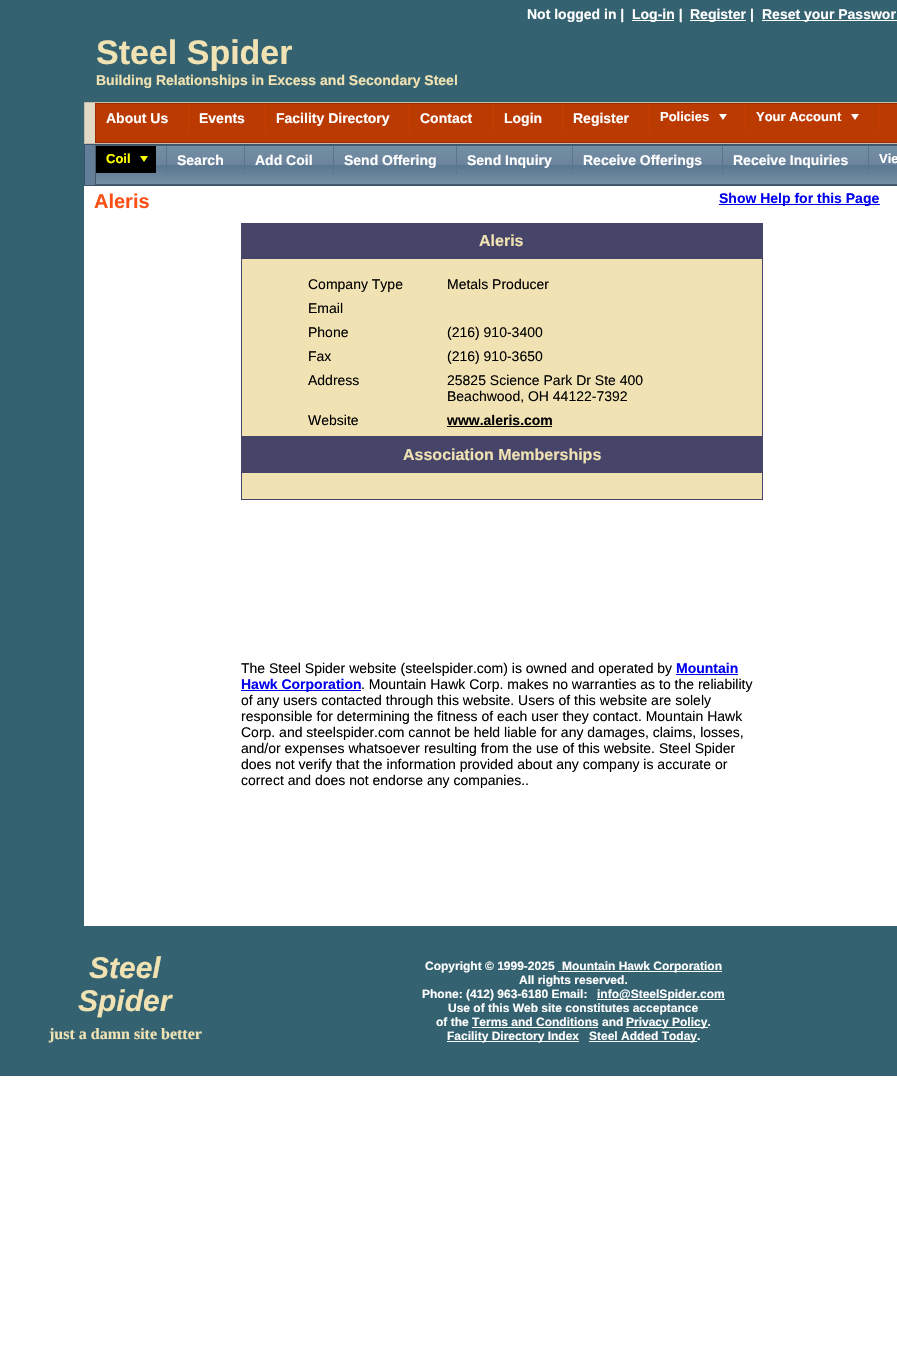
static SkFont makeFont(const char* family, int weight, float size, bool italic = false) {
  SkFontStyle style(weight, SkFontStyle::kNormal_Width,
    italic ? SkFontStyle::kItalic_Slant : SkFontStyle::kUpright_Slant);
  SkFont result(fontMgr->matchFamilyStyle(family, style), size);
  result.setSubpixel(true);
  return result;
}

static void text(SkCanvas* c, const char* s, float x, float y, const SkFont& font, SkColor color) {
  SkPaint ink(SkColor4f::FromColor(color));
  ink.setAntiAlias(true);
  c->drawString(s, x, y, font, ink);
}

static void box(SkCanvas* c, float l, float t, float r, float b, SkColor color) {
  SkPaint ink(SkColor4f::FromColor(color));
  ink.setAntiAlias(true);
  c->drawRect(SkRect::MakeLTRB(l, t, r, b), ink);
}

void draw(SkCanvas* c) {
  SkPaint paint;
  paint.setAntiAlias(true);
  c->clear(0xffffffff);
  box(c, 0, 0, 84, 926, 0xff346270);
  box(c, 84, 0, 897, 102, 0xff346270);
  SkFont face1 = makeFont("Liberation Sans", 700, 14);
  text(c, "Not logged in |", 527, 19, face1, 0xffffffff);
  box(c, 632, 20, 674, 21, 0xffffffff);
  text(c, "Log-in |", 632, 19, face1, 0xffffffff);
  box(c, 690, 20, 746, 21, 0xffffffff);
  text(c, "Register |", 690, 19, face1, 0xffffffff);
  box(c, 762, 20, 897, 21, 0xffffffff);
  text(c, "Reset your Passwor", 762, 19, face1, 0xffffffff);
  SkFont face2 = makeFont("Liberation Sans", 700, 34);
  text(c, "Steel Spider", 96, 64, face2, 0xfff0e2b3);
  text(c, "Building Relationships in Excess and Secondary Steel", 96, 85, face1, 0xfff0e2b3);
  box(c, 85, 103, 95, 143, 0xffe1dac7);
  box(c, 84, 102, 897, 103, 0xffcabaab);
  box(c, 84, 143, 897, 144, 0xffcabaab);
  box(c, 84, 102, 85, 144, 0xffcabaab);
  paint.setColor(0xffbb3a01);
  c->drawRect(SkRect::MakeLTRB(95.5f, 103.5f, 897.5f, 142.5f), paint);
  paint.setStyle(SkPaint::kStroke_Style);
  paint.setStrokeWidth(1);
  paint.setColor(0xff972f01);
  c->drawRect(SkRect::MakeLTRB(95.5f, 103.5f, 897.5f, 142.5f), paint);
  box(c, 188, 104, 189, 132, 0xffca3f01);
  text(c, "About Us", 106, 123, face1, 0xffffffff);
  box(c, 265, 104, 266, 132, 0xffca3f01);
  text(c, "Events", 199, 123, face1, 0xffffffff);
  box(c, 409, 104, 410, 132, 0xffca3f01);
  text(c, "Facility Directory", 276, 123, face1, 0xffffffff);
  box(c, 493, 104, 494, 132, 0xffca3f01);
  text(c, "Contact", 420, 123, face1, 0xffffffff);
  box(c, 562, 104, 563, 132, 0xffca3f01);
  text(c, "Login", 504, 123, face1, 0xffffffff);
  box(c, 649, 104, 650, 132, 0xffca3f01);
  text(c, "Register", 573, 123, face1, 0xffffffff);
  box(c, 745, 104, 746, 131, 0xffca3f01);
  SkFont face3 = makeFont("Liberation Sans", 700, 13);
  text(c, "Policies", 660, 121, face3, 0xffffffff);
  paint.setStyle(SkPaint::kFill_Style);
  paint.setColor(0xffffffff);
  c->drawPath(SkPathBuilder().moveTo(723, 120).lineTo(719, 114).lineTo(727, 114).close().detach(), paint);
  box(c, 878, 104, 879, 131, 0xffca3f01);
  text(c, "Your Account", 756, 121, face3, 0xffffffff);
  c->drawPath(SkPathBuilder().moveTo(855, 120).lineTo(851, 114).lineTo(859, 114).close().detach(), paint);
  box(c, 85, 145, 95, 185, 0xff627f97);
  box(c, 84, 144, 897, 145, 0xff3d556c);
  box(c, 84, 185, 897, 186, 0xff3d556c);
  box(c, 84, 144, 85, 186, 0xff3d556c);
  {
    const SkColor colors[] = {0xff748ea3, 0xff6b849d, 0xff597791, 0xff748ea3};
    const float stops[] = {0, 0.5f, 0.5f, 1};
    const SkPoint ends[] = {{505, 146}, {505, 184}};
    paint.setShader(SkGradientShader::MakeLinear(ends, colors, stops, 4, SkTileMode::kClamp));
    paint.setAlpha(255);
  }
  c->drawRect(SkRect::MakeLTRB(96, 146, 897, 184), paint);
  paint.setStyle(SkPaint::kStroke_Style);
  paint.setShader(nullptr);
  paint.setColor(0xff465a6b);
  c->drawRect(SkRect::MakeLTRB(95.5f, 145.5f, 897.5f, 184.5f), paint);
  box(c, 166, 146, 167, 173, 0xff5b7489);
  box(c, 96, 146, 156, 173, 0xff000000);
  text(c, "Coil", 106, 163, face3, 0xffffff00);
  paint.setStyle(SkPaint::kFill_Style);
  paint.setColor(0xffffff00);
  c->drawPath(SkPathBuilder().moveTo(144, 162).lineTo(140, 156).lineTo(148, 156).close().detach(), paint);
  box(c, 244, 146, 245, 174, 0xff5b7489);
  text(c, "Search", 177, 165, face1, 0xffffffff);
  box(c, 333, 146, 334, 174, 0xff5b7489);
  text(c, "Add Coil", 255, 165, face1, 0xffffffff);
  box(c, 456, 146, 457, 174, 0xff5b7489);
  text(c, "Send Offering", 344, 165, face1, 0xffffffff);
  box(c, 572, 146, 573, 174, 0xff5b7489);
  text(c, "Send Inquiry", 467, 165, face1, 0xffffffff);
  box(c, 722, 146, 723, 174, 0xff5b7489);
  text(c, "Receive Offerings", 583, 165, face1, 0xffffffff);
  box(c, 868, 146, 869, 174, 0xff5b7489);
  text(c, "Receive Inquiries", 733, 165, face1, 0xffffffff);
  text(c, "Vie", 879, 163, face3, 0xffffffff);
  SkFont face4 = makeFont("Liberation Sans", 700, 20);
  text(c, "Aleris", 94, 208, face4, 0xfffa4f15);
  box(c, 719, 204, 880, 205, 0xff0000ee);
  text(c, "Show Help for this Page", 719, 203, face1, 0xff0000ee);
  box(c, 242, 259, 762, 436, 0xfff0e2b3);
  box(c, 762, 223, 763, 500, 0xff464469);
  box(c, 241, 436, 763, 437, 0xff464469);
  box(c, 241, 223, 242, 437, 0xff464469);
  box(c, 242, 223, 762, 259, 0xff464469);
  SkFont face5 = makeFont("Liberation Sans", 700, 16);
  text(c, "Aleris", 479, 246, face5, 0xfff0e2b3);
  SkFont face6 = makeFont("Liberation Sans", 400, 14);
  text(c, "Company Type", 308, 289, face6, 0xff000000);
  text(c, "Metals Producer", 447, 289, face6, 0xff000000);
  text(c, "Email", 308, 313, face6, 0xff000000);
  text(c, "Phone", 308, 337, face6, 0xff000000);
  text(c, "(216) 910-3400", 447, 337, face6, 0xff000000);
  text(c, "Fax", 308, 361, face6, 0xff000000);
  text(c, "(216) 910-3650", 447, 361, face6, 0xff000000);
  text(c, "Address", 308, 385, face6, 0xff000000);
  text(c, "25825 Science Park Dr Ste 400", 447, 385, face6, 0xff000000);
  text(c, "Beachwood, OH 44122-7392", 447, 401, face6, 0xff000000);
  text(c, "Website", 308, 425, face6, 0xff000000);
  text(c, "www.aleris.com", 447, 425, face1, 0xff000000);
  box(c, 447, 426, 552, 427, 0xff000000);
  box(c, 242, 473, 762, 499, 0xfff0e2b3);
  box(c, 241, 499, 763, 500, 0xff464469);
  box(c, 241, 437, 242, 500, 0xff464469);
  box(c, 242, 437, 762, 473, 0xff464469);
  text(c, "Association Memberships", 403, 460, face5, 0xfff0e2b3);
  text(c, "The Steel Spider website (steelspider.com) is owned and operated by", 241, 673, face6, 0xff000000);
  text(c, "Mountain", 676, 673, face1, 0xff0000ee);
  box(c, 676, 674, 738, 675, 0xff0000ee);
  box(c, 241, 690, 361, 691, 0xff0000ee);
  text(c, "Hawk Corporation", 241, 689, face1, 0xff0000ee);
  text(c, ". Mountain Hawk Corp. makes no warranties as to the reliability", 361, 689, face6, 0xff000000);
  text(c, "of any users contacted through this website. Users of this website are solely", 241, 705, face6, 0xff000000);
  text(c, "responsible for determining the fitness of each user they contact. Mountain Hawk", 241, 721, face6, 0xff000000);
  text(c, "Corp. and steelspider.com cannot be held liable for any damages, claims, losses,", 241, 737, face6, 0xff000000);
  text(c, "and/or expenses whatsoever resulting from the use of this website. Steel Spider", 241, 753, face6, 0xff000000);
  text(c, "does not verify that the information provided about any company is accurate or", 241, 769, face6, 0xff000000);
  text(c, "correct and does not endorse any companies..", 241, 785, face6, 0xff000000);
  box(c, 0, 926, 897, 1076, 0xff346270);
  SkFont face7 = makeFont("Liberation Sans", 700, 30, true);
  text(c, "Steel", 89, 978, face7, 0xfff0e2b3);
  text(c, "Spider", 78, 1011, face7, 0xfff0e2b3);
  SkFont face8 = makeFont("Liberation Serif", 700, 16);
  text(c, "just a damn site better", 49, 1039, face8, 0xfff0e2b3);
  SkFont face9 = makeFont("Liberation Sans", 700, 12);
  text(c, "Copyright © 1999-2025", 425, 970, face9, 0xffffffff);
  box(c, 558, 971, 722, 972, 0xffffffff);
  text(c, "Mountain Hawk Corporation", 562, 970, face9, 0xffffffff);
  text(c, "All rights reserved.", 519, 984, face9, 0xffffffff);
  text(c, "Phone: (412) 963-6180 Email:", 422, 998, face9, 0xffffffff);
  box(c, 597, 999, 725, 1000, 0xffffffff);
  text(c, "info@SteelSpider.com", 597, 998, face9, 0xffffffff);
  text(c, "Use of this Web site constitutes acceptance", 448, 1012, face9, 0xffffffff);
  text(c, "of the Terms and Conditions and", 436, 1026, face9, 0xffffffff);
  box(c, 626, 1027, 708, 1028, 0xffffffff);
  text(c, "Privacy Policy.", 626, 1026, face9, 0xffffffff);
  box(c, 472, 1027, 598, 1028, 0xffffffff);
  box(c, 447, 1041, 579, 1042, 0xffffffff);
  text(c, "Facility Directory Index", 447, 1040, face9, 0xffffffff);
  box(c, 589, 1041, 697, 1042, 0xffffffff);
  text(c, "Steel Added Today.", 589, 1040, face9, 0xffffffff);
}
